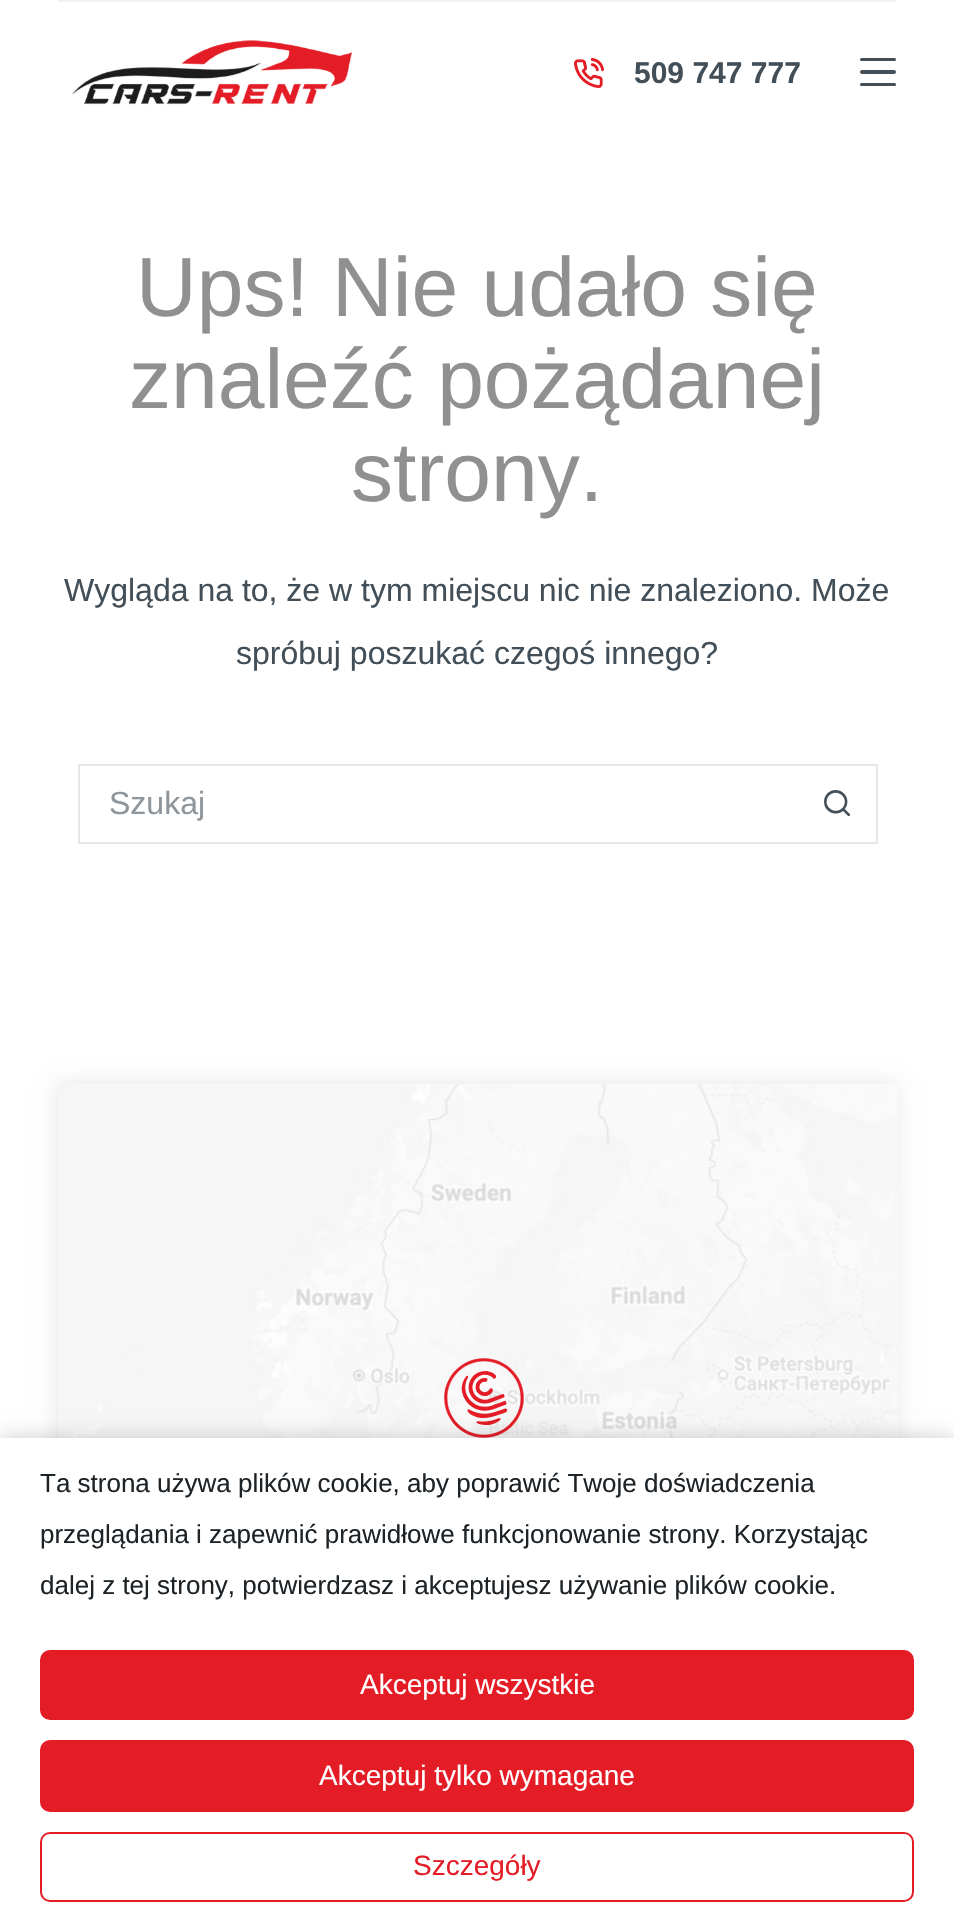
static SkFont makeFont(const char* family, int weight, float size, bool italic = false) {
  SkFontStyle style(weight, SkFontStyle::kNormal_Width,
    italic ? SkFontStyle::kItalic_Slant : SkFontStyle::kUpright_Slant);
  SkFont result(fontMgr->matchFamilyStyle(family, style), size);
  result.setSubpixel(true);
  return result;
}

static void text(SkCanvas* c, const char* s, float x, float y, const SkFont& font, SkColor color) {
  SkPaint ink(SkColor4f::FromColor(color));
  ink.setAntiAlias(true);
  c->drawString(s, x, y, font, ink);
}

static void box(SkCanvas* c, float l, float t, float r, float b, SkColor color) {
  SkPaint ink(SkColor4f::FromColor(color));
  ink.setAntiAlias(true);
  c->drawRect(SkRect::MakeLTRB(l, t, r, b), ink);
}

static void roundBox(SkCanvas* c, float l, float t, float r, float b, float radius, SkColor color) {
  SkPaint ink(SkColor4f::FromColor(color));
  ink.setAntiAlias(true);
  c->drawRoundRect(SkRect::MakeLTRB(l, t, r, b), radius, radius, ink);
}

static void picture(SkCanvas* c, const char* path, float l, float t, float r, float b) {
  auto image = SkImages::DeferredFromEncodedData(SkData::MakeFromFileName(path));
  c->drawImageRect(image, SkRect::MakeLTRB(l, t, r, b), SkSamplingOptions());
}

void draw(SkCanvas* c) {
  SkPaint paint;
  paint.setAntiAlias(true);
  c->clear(0xffffffff);
  box(c, 58, 0, 896, 2, 0xfff0f1f3);
  picture(c, "img_01.png", 72, 40, 353, 105);
  picture(c, "img_02.png", 574, 58, 604, 88);
  SkFont face1 = makeFont("Liberation Sans", 700, 30);
  text(c, "509 747 777", 634, 83, face1, 0xff434f58);
  roundBox(c, 860, 58, 896, 61, 1.5f, 0xff434f58);
  roundBox(c, 860, 70, 896, 74, 2, 0xff434f58);
  roundBox(c, 860, 83, 896, 86, 1.5f, 0xff434f58);
  SkFont face2 = makeFont("Liberation Sans", 400, 84);
  text(c, "Ups! Nie udało się", 136, 316, face2, 0xff909090);
  text(c, "znaleźć pożądanej", 129, 408, face2, 0xff909090);
  text(c, "strony.", 351, 501, face2, 0xff909090);
  SkFont face3 = makeFont("Liberation Sans", 400, 32);
  text(c, "Wygląda na to, że w tym miejscu nic nie znaleziono. Może", 64, 601, face3, 0xff434f58);
  text(c, "spróbuj poszukać czegoś innego?", 236, 664, face3, 0xff434f58);
  box(c, 78, 764, 878, 766, 0xffe7e7e7);
  box(c, 78, 842, 798, 844, 0xffe7e7e7);
  box(c, 78, 764, 80, 844, 0xffe7e7e7);
  text(c, "Szukaj", 109, 814, face3, 0xff8e959b);
  box(c, 876, 764, 878, 844, 0xffe7e7e7);
  box(c, 798, 842, 878, 844, 0xffe7e7e7);
  picture(c, "img_03.png", 824, 790, 850, 816);
  paint.setColor(0x1a000000);
  paint.setMaskFilter(SkMaskFilter::MakeBlur(kNormal_SkBlurStyle, 10));
  c->drawRect(SkRect::MakeLTRB(58, 1084, 896, 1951), paint);
  paint.setMaskFilter(nullptr);
  picture(c, "img_04.png", 58, 1084, 898, 1438);
  paint.setColor(0x33000000);
  paint.setMaskFilter(SkMaskFilter::MakeBlur(kNormal_SkBlurStyle, 10));
  c->drawRect(SkRect::MakeLTRB(0, 1438, 954, 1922), paint);
  paint.setMaskFilter(nullptr);
  box(c, 0, 1438, 954, 1921, 0xffffffff);
  SkFont face4 = makeFont("Liberation Sans", 400, 26);
  text(c, "Ta strona używa plików cookie, aby poprawić Twoje doświadczenia", 40, 1492, face4, 0xff1d2327);
  text(c, "przeglądania i zapewnić prawidłowe funkcjonowanie strony. Korzystając", 40, 1543, face4, 0xff1d2327);
  text(c, "dalej z tej strony, potwierdzasz i akceptujesz używanie plików cookie.", 40, 1594, face4, 0xff1d2327);
  paint.setColor(0xffe41c26);
  c->drawRoundRect(SkRect::MakeLTRB(41, 1651, 913, 1719), 9, 9, paint);
  paint.setStyle(SkPaint::kStroke_Style);
  paint.setStrokeWidth(2);
  c->drawRoundRect(SkRect::MakeLTRB(41, 1651, 913, 1719), 9, 9, paint);
  SkFont face5 = makeFont("Liberation Sans", 400, 28);
  text(c, "Akceptuj wszystkie", 360, 1694, face5, 0xffffffff);
  paint.setStyle(SkPaint::kFill_Style);
  c->drawRoundRect(SkRect::MakeLTRB(41, 1741, 913, 1811), 9, 9, paint);
  paint.setStyle(SkPaint::kStroke_Style);
  c->drawRoundRect(SkRect::MakeLTRB(41, 1741, 913, 1811), 9, 9, paint);
  text(c, "Akceptuj tylko wymagane", 319, 1785, face5, 0xffffffff);
  c->drawRoundRect(SkRect::MakeLTRB(41, 1833, 913, 1901), 9, 9, paint);
  text(c, "Szczegóły", 413, 1875, face5, 0xffe41c26);
}
